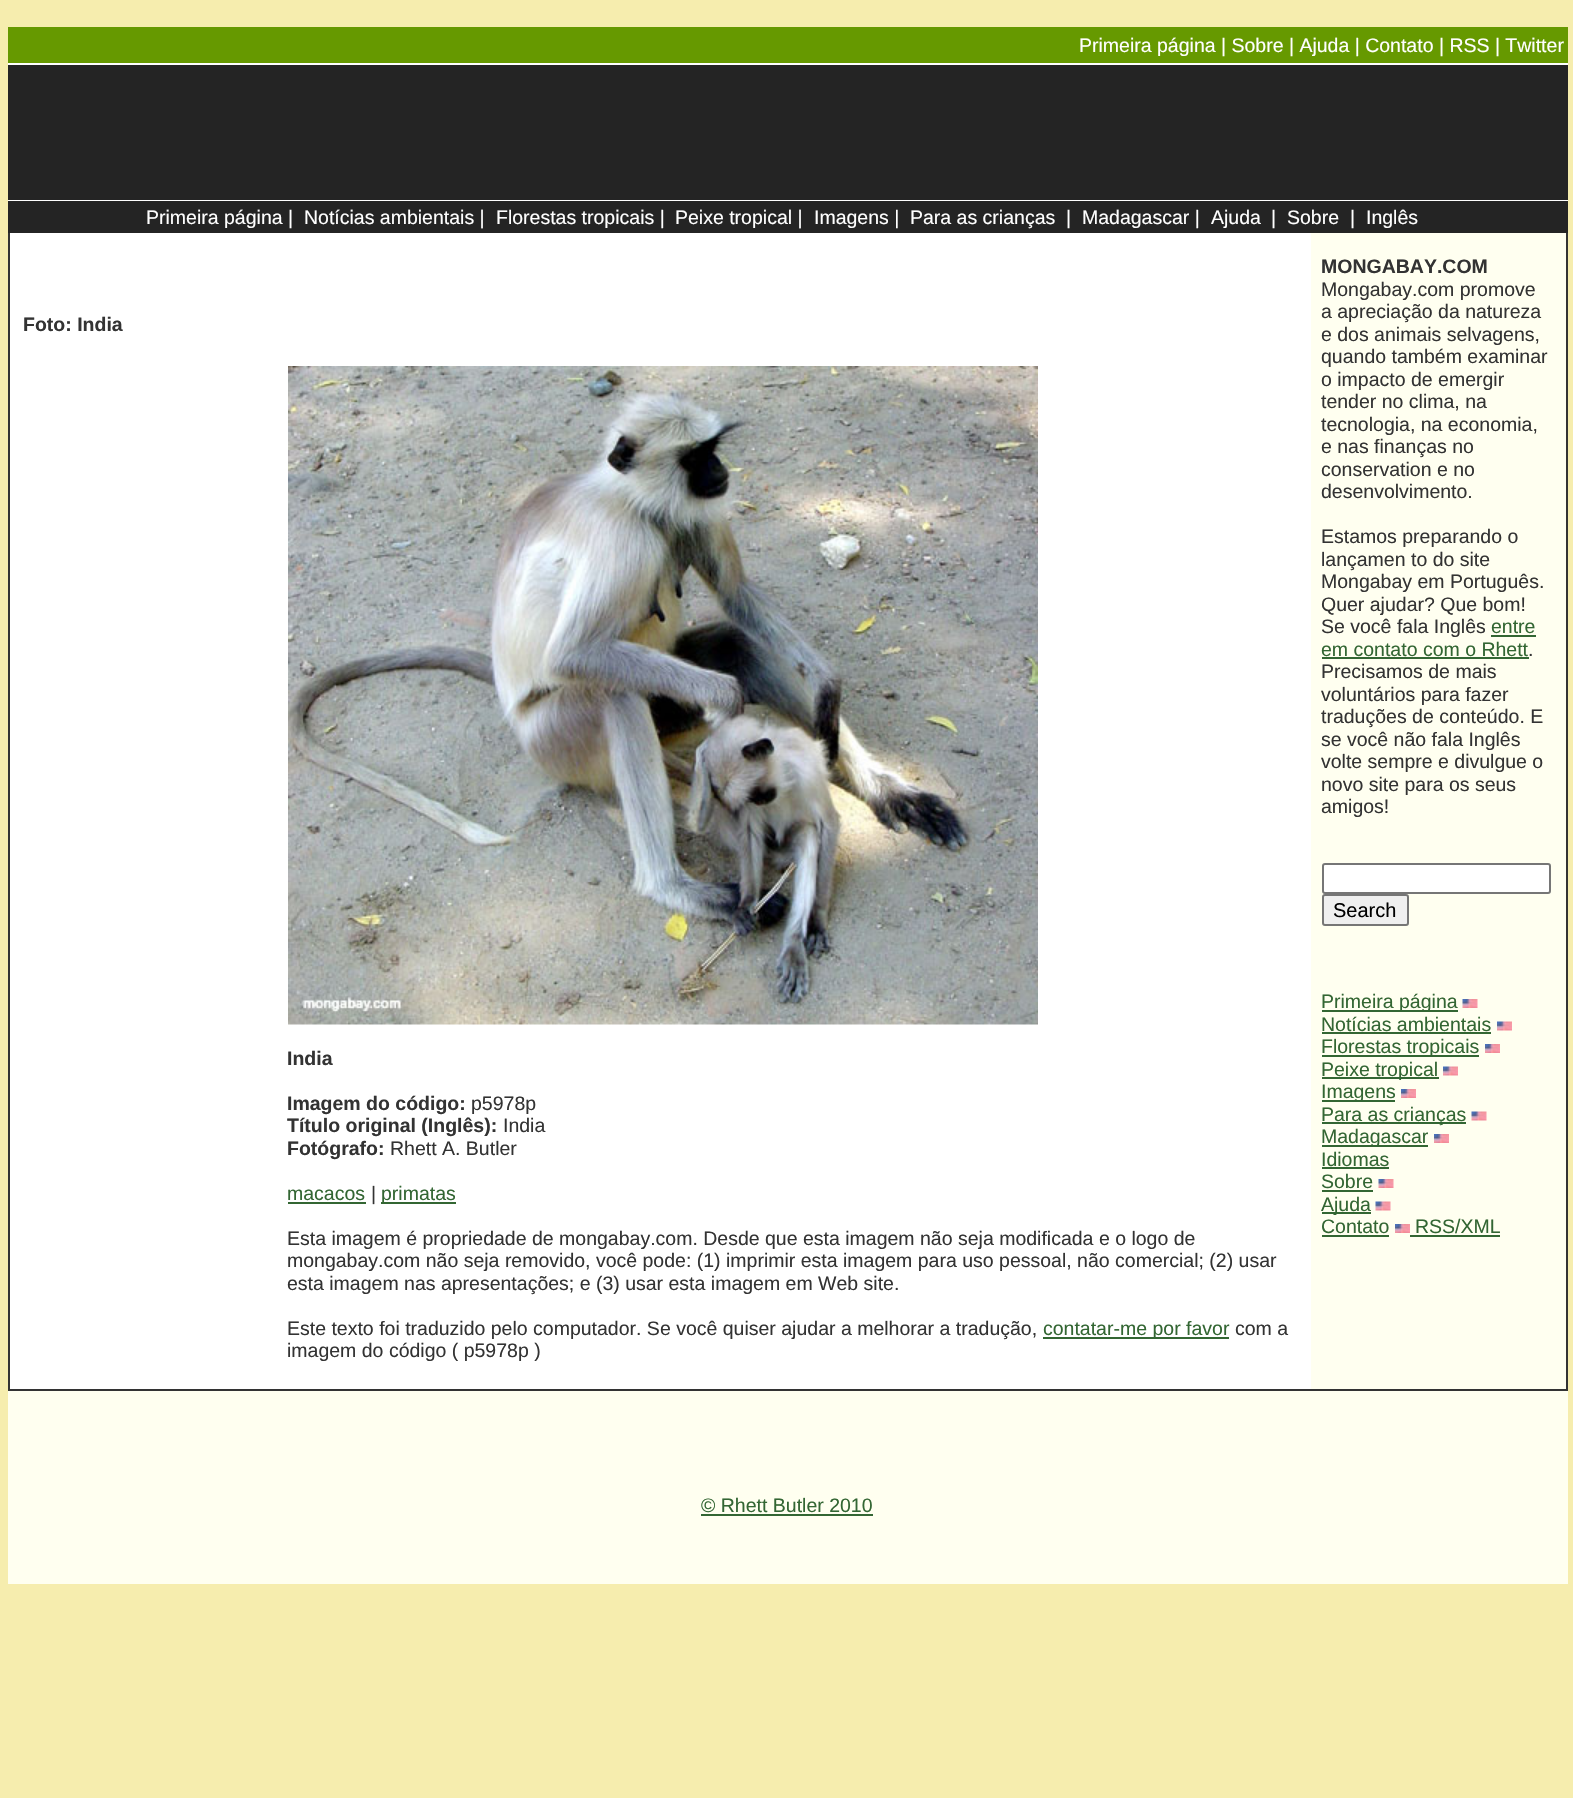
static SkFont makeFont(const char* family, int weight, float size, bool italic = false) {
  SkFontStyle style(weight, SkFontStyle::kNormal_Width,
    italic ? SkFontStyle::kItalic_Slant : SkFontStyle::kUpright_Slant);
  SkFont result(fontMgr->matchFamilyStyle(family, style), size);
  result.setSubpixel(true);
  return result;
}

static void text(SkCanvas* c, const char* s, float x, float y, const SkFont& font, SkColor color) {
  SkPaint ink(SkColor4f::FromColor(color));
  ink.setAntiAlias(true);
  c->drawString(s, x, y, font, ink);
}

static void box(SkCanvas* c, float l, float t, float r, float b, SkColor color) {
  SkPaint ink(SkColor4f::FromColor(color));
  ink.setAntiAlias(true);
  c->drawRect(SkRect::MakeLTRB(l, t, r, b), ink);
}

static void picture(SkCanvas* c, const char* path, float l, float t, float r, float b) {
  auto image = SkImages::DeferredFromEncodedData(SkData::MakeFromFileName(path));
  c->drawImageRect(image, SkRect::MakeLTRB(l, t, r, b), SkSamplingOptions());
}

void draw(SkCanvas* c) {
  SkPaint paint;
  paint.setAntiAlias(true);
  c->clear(0xfff6edae);
  box(c, 8, 27, 1568, 63, 0xff669900);
  SkFont face1 = makeFont("Liberation Sans", 400, 19.5f);
  text(c, "Primeira página | Sobre | Ajuda | Contato | RSS | Twitter", 1079, 52, face1, 0xffffffff);
  box(c, 8, 63, 1568, 65, 0xffffffff);
  box(c, 8, 65, 1568, 200, 0xff242424);
  box(c, 8, 200, 1568, 201, 0xffffffff);
  box(c, 8, 201, 1568, 233, 0xff242424);
  text(c, "Primeira página |", 146, 224, face1, 0xffffffff);
  text(c, "Notícias ambientais |", 304, 224, face1, 0xffffffff);
  text(c, "Florestas tropicais |", 496, 224, face1, 0xffffffff);
  text(c, "Peixe tropical |", 675, 224, face1, 0xffffffff);
  text(c, "Imagens |", 814, 224, face1, 0xffffffff);
  text(c, "Para as crianças", 910, 224, face1, 0xffffffff);
  text(c, "|", 1066, 224, face1, 0xffffffff);
  text(c, "Madagascar |", 1082, 224, face1, 0xffffffff);
  text(c, "Ajuda", 1211, 224, face1, 0xffffffff);
  text(c, "|", 1271, 224, face1, 0xffffffff);
  text(c, "Sobre", 1287, 224, face1, 0xffffffff);
  text(c, "|", 1350, 224, face1, 0xffffffff);
  text(c, "Inglês", 1366, 224, face1, 0xffffffff);
  box(c, 10, 233, 1311, 1389, 0xffffffff);
  box(c, 8, 233, 10, 1389, 0xff333333);
  SkFont face2 = makeFont("Liberation Sans", 700, 19.5f);
  text(c, "Foto: India", 23, 331, face2, 0xff333333);
  picture(c, "img_01.png", 288, 366, 1038, 1025);
  text(c, "India", 287, 1065, face2, 0xff333333);
  text(c, "Imagem do código:", 287, 1110, face2, 0xff333333);
  text(c, "p5978p", 471, 1110, face1, 0xff333333);
  text(c, "Título original (Inglês):", 287, 1132, face2, 0xff333333);
  text(c, "India", 503, 1132, face1, 0xff333333);
  text(c, "Fotógrafo:", 287, 1155, face2, 0xff333333);
  text(c, "Rhett A. Butler", 390, 1155, face1, 0xff333333);
  text(c, "macacos", 287, 1200, face1, 0xff336633);
  box(c, 288, 1202, 366, 1204, 0xff336633);
  text(c, "|", 371, 1200, face1, 0xff333333);
  box(c, 381, 1202, 456, 1204, 0xff336633);
  text(c, "primatas", 381, 1200, face1, 0xff336633);
  text(c, "Esta imagem é propriedade de mongabay.com. Desde que esta imagem não seja modificada e o logo de", 287, 1245, face1, 0xff333333);
  text(c, "mongabay.com não seja removido, você pode: (1) imprimir esta imagem para uso pessoal, não comercial; (2) usar", 287, 1267, face1, 0xff333333);
  text(c, "esta imagem nas apresentações; e (3) usar esta imagem em Web site.", 287, 1290, face1, 0xff333333);
  text(c, "Este texto foi traduzido pelo computador. Se você quiser ajudar a melhorar a tradução,", 287, 1335, face1, 0xff333333);
  box(c, 1043, 1337, 1229, 1339, 0xff336633);
  text(c, "contatar-me por favor", 1043, 1335, face1, 0xff336633);
  text(c, "com a", 1235, 1335, face1, 0xff333333);
  text(c, "imagem do código ( p5978p )", 287, 1357, face1, 0xff333333);
  box(c, 1311, 233, 1566, 1389, 0xfffffff0);
  text(c, "MONGABAY.COM", 1321, 273, face2, 0xff333333);
  text(c, "Mongabay.com promove", 1321, 296, face1, 0xff333333);
  text(c, "a apreciação da natureza", 1321, 318, face1, 0xff333333);
  text(c, "e dos animais selvagens,", 1321, 341, face1, 0xff333333);
  text(c, "quando também examinar", 1321, 363, face1, 0xff333333);
  text(c, "o impacto de emergir", 1321, 386, face1, 0xff333333);
  text(c, "tender no clima, na", 1321, 408, face1, 0xff333333);
  text(c, "tecnologia, na economia,", 1321, 431, face1, 0xff333333);
  text(c, "e nas finanças no", 1321, 453, face1, 0xff333333);
  text(c, "conservation e no", 1321, 476, face1, 0xff333333);
  text(c, "desenvolvimento.", 1321, 498, face1, 0xff333333);
  text(c, "Estamos preparando o", 1321, 543, face1, 0xff333333);
  text(c, "lançamen to do site", 1321, 566, face1, 0xff333333);
  text(c, "Mongabay em Português.", 1321, 588, face1, 0xff333333);
  text(c, "Quer ajudar? Que bom!", 1321, 611, face1, 0xff333333);
  text(c, "Se você fala Inglês", 1321, 633, face1, 0xff333333);
  text(c, "entre", 1491, 633, face1, 0xff336633);
  box(c, 1491, 635, 1536, 637, 0xff336633);
  text(c, "em contato com o Rhett", 1321, 656, face1, 0xff336633);
  box(c, 1322, 657, 1529, 659, 0xff336633);
  text(c, ".", 1528, 656, face1, 0xff333333);
  text(c, "Precisamos de mais", 1321, 678, face1, 0xff333333);
  text(c, "voluntários para fazer", 1321, 701, face1, 0xff333333);
  text(c, "traduções de conteúdo. E", 1321, 723, face1, 0xff333333);
  text(c, "se você não fala Inglês", 1321, 746, face1, 0xff333333);
  text(c, "volte sempre e divulgue o", 1321, 768, face1, 0xff333333);
  text(c, "novo site para os seus", 1321, 791, face1, 0xff333333);
  text(c, "amigos!", 1321, 813, face1, 0xff333333);
  paint.setColor(0xffffffff);
  c->drawRoundRect(SkRect::MakeLTRB(1323, 864, 1550, 893), 2, 2, paint);
  paint.setStyle(SkPaint::kStroke_Style);
  paint.setStrokeWidth(2);
  paint.setColor(0xff767676);
  c->drawRoundRect(SkRect::MakeLTRB(1323, 864, 1550, 893), 2, 2, paint);
  paint.setStyle(SkPaint::kFill_Style);
  paint.setColor(0xffefefef);
  c->drawRoundRect(SkRect::MakeLTRB(1323, 895, 1408, 925), 2, 2, paint);
  paint.setStyle(SkPaint::kStroke_Style);
  paint.setColor(0xff767676);
  c->drawRoundRect(SkRect::MakeLTRB(1323, 895, 1408, 925), 2, 2, paint);
  SkFont face3 = makeFont("Liberation Sans", 400, 20);
  text(c, "Search", 1333, 917, face3, 0xff000000);
  box(c, 1322, 1010, 1458, 1012, 0xff336633);
  text(c, "Primeira página", 1321, 1008, face1, 0xff336633);
  picture(c, "img_02.png", 1462, 999, 1478, 1008);
  text(c, "Notícias ambientais", 1321, 1031, face1, 0xff336633);
  box(c, 1322, 1032, 1491, 1034, 0xff336633);
  picture(c, "img_03.png", 1497, 1021, 1512, 1031);
  box(c, 1322, 1055, 1479, 1057, 0xff336633);
  text(c, "Florestas tropicais", 1321, 1053, face1, 0xff336633);
  picture(c, "img_04.png", 1485, 1044, 1500, 1053);
  box(c, 1322, 1077, 1439, 1079, 0xff336633);
  text(c, "Peixe tropical", 1321, 1076, face1, 0xff336633);
  picture(c, "img_05.png", 1443, 1066, 1458, 1076);
  box(c, 1322, 1100, 1395, 1102, 0xff336633);
  text(c, "Imagens", 1321, 1098, face1, 0xff336633);
  picture(c, "img_06.png", 1401, 1089, 1416, 1098);
  box(c, 1322, 1122, 1466, 1124, 0xff336633);
  text(c, "Para as crianças", 1321, 1121, face1, 0xff336633);
  picture(c, "img_07.png", 1471, 1111, 1487, 1121);
  box(c, 1322, 1145, 1428, 1147, 0xff336633);
  text(c, "Madagascar", 1321, 1143, face1, 0xff336633);
  picture(c, "img_06.png", 1434, 1134, 1449, 1143);
  text(c, "Idiomas", 1321, 1166, face1, 0xff336633);
  box(c, 1322, 1167, 1389, 1169, 0xff336633);
  text(c, "Sobre", 1321, 1188, face1, 0xff336633);
  box(c, 1322, 1190, 1373, 1192, 0xff336633);
  picture(c, "img_02.png", 1378, 1179, 1394, 1188);
  box(c, 1322, 1212, 1371, 1214, 0xff336633);
  text(c, "Ajuda", 1321, 1211, face1, 0xff336633);
  picture(c, "img_07.png", 1375, 1201, 1391, 1211);
  text(c, "Contato", 1321, 1233, face1, 0xff336633);
  box(c, 1322, 1235, 1389, 1237, 0xff336633);
  picture(c, "img_06.png", 1395, 1224, 1410, 1233);
  text(c, "RSS/XML", 1415, 1233, face1, 0xff336633);
  box(c, 1410, 1235, 1500, 1237, 0xff336633);
  box(c, 1566, 233, 1568, 1389, 0xff333333);
  box(c, 8, 1389, 1568, 1391, 0xff333333);
  box(c, 8, 1391, 1568, 1584, 0xfffffff0);
  text(c, "© Rhett Butler 2010", 701, 1512, face1, 0xff336633);
  box(c, 701, 1514, 873, 1516, 0xff336633);
}
